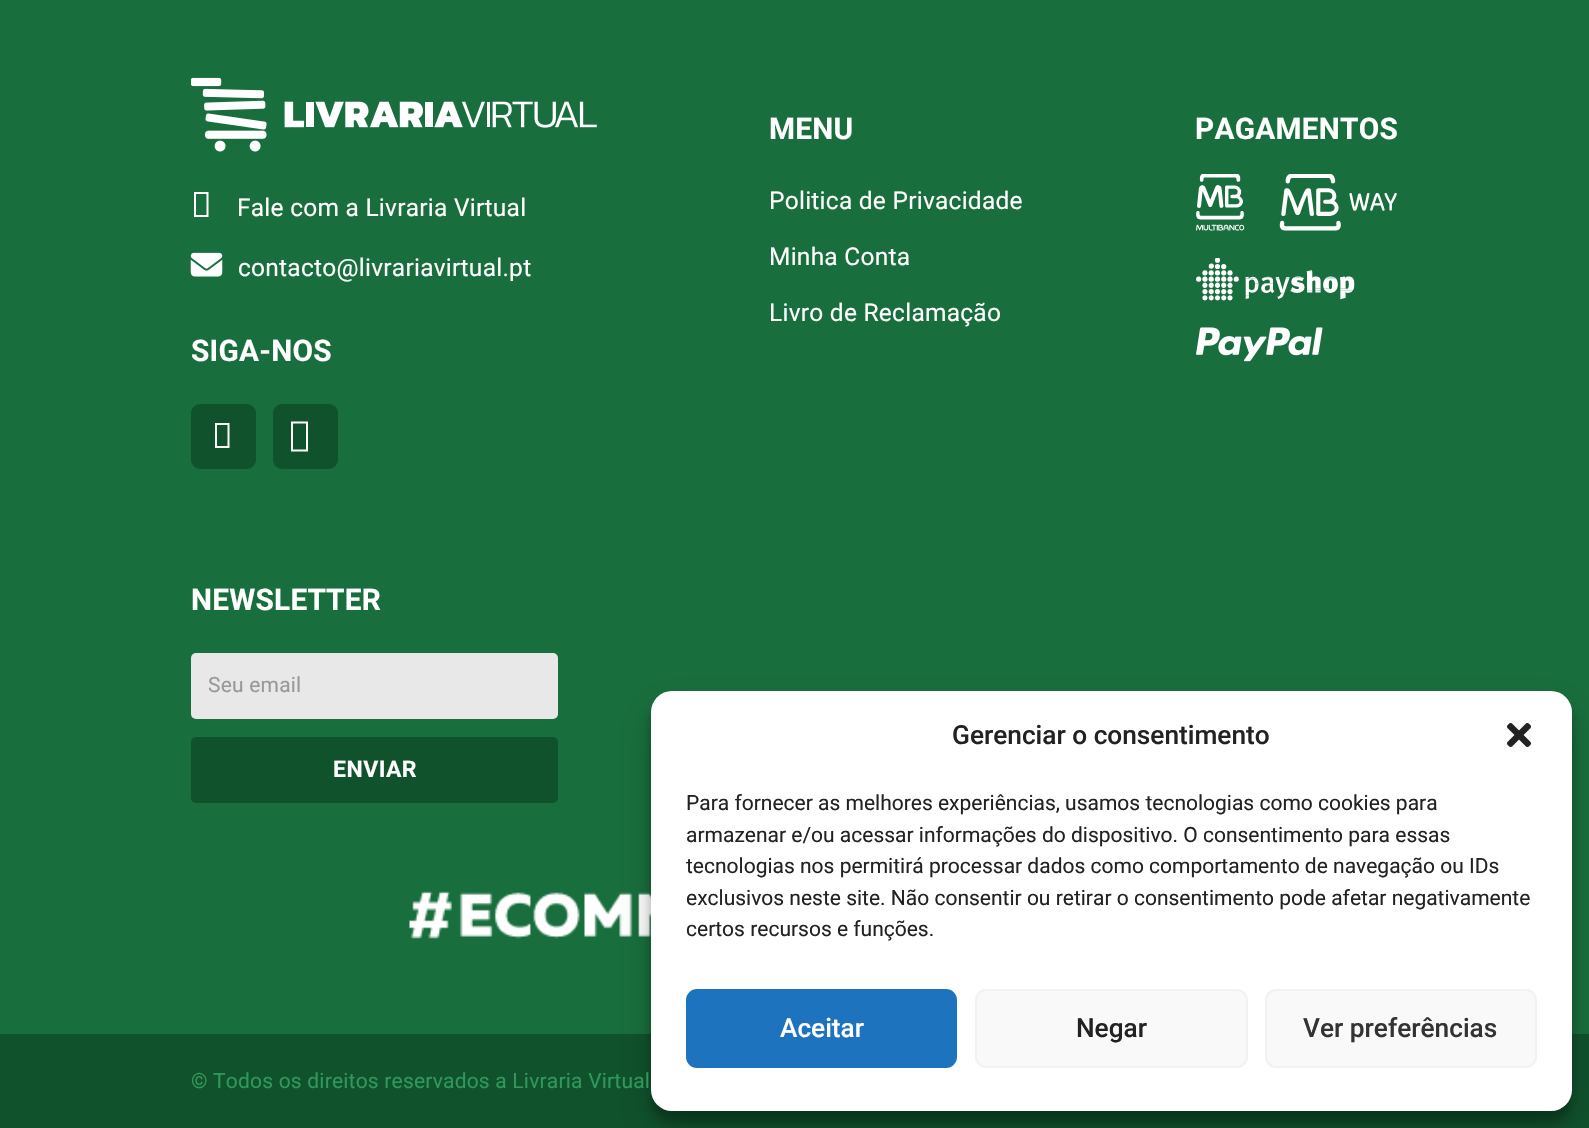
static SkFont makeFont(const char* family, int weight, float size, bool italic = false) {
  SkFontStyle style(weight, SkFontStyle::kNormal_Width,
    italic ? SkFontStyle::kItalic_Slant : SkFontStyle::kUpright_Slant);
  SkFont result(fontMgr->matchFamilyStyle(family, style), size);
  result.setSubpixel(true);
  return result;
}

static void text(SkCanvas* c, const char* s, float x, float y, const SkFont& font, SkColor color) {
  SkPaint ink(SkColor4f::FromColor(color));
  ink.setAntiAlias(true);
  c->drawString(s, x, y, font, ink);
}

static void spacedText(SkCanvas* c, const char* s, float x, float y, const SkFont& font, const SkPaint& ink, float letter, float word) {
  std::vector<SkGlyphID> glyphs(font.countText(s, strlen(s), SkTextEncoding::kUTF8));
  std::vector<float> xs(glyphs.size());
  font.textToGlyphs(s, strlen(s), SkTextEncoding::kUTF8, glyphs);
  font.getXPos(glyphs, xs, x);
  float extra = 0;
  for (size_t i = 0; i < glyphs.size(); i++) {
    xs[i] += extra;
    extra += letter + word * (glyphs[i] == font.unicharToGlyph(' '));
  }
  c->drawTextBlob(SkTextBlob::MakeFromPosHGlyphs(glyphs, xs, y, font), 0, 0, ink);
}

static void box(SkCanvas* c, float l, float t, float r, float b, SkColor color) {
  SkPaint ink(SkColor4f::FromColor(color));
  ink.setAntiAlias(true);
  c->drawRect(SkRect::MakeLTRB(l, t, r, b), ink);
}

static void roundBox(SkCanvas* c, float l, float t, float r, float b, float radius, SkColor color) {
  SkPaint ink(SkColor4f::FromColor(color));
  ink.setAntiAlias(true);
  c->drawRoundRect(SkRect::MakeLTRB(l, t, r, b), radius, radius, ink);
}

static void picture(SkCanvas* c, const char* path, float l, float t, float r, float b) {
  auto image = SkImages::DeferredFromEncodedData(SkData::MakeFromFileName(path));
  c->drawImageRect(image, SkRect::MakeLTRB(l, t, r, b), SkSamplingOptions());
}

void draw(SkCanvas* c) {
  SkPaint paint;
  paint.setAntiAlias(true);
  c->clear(0xff196e3d);
  SkFont face1 = makeFont("Roboto", 700, 29.75f);
  paint.setColor(0xffffffff);
  spacedText(c, "MENU", 769, 139, face1, paint, 0.25f, 0);
  SkFont face2 = makeFont("Roboto", 400, 24.5f);
  spacedText(c, "Politica de Privacidade", 769, 209, face2, paint, 0.25f, 0);
  spacedText(c, "Minha Conta", 769, 265, face2, paint, 0.25f, 0);
  spacedText(c, "Livro de Reclamação", 769, 321, face2, paint, 0.25f, 0);
  spacedText(c, "PAGAMENTOS", 1195, 139, face1, paint, 0.25f, 0);
  picture(c, "img_01.png", 1196, 174, 1397, 231);
  picture(c, "img_02.png", 1196, 258, 1355, 301);
  picture(c, "img_03.png", 1196, 327, 1323, 362);
  picture(c, "img_04.png", 191, 77, 597, 152);
  c->drawPath(SkPathBuilder().moveTo(194, 217).lineTo(194, 192).lineTo(208.5f, 192).lineTo(208.5f, 217).close().moveTo(196, 215).lineTo(206.5f, 215).lineTo(206.5f, 194).lineTo(196, 194).close().detach(), paint);
  spacedText(c, "Fale com a Livraria Virtual", 237, 216, face2, paint, 0.25f, 0);
  picture(c, "img_05.png", 190, 252, 223, 277);
  spacedText(c, "contacto@livrariavirtual.pt", 238, 276, face2, paint, 0.25f, 0);
  spacedText(c, "SIGA-NOS", 191, 361, face1, paint, 0.25f, 0);
  roundBox(c, 191, 404, 256, 469, 9, 0xff10522c);
  c->drawPath(SkPathBuilder().moveTo(215, 448).lineTo(215, 423).lineTo(229.5f, 423).lineTo(229.5f, 448).close().moveTo(217, 446).lineTo(227.5f, 446).lineTo(227.5f, 425).lineTo(217, 425).close().detach(), paint);
  roundBox(c, 273, 404, 338, 469, 9, 0xff10522c);
  c->drawPath(SkPathBuilder().moveTo(291, 451.5f).lineTo(291, 421.5f).lineTo(308, 421.5f).lineTo(308, 451.5f).close().moveTo(293, 449.5f).lineTo(306, 449.5f).lineTo(306, 423.5f).lineTo(293, 423.5f).close().detach(), paint);
  spacedText(c, "NEWSLETTER", 191, 610, face1, paint, 0.25f, 0);
  roundBox(c, 191, 653, 558, 719, 5, 0xffe8e8e8);
  SkFont face3 = makeFont("Roboto", 400, 21);
  paint.setColor(0xff989898);
  spacedText(c, "Seu email", 208, 692, face3, paint, 0.2f, 0);
  roundBox(c, 191, 737, 558, 803, 5, 0xff10522c);
  SkFont face4 = makeFont("Roboto", 700, 23);
  paint.setColor(0xffffffff);
  spacedText(c, "ENVIAR", 333, 777, face4, paint, 0.5f, 0);
  picture(c, "img_06.png", 409, 891, 651, 939);
  box(c, 0, 1034, 1589, 1128, 0xff10522c);
  paint.setColor(0x3b000000);
  paint.setMaskFilter(SkMaskFilter::MakeBlur(kNormal_SkBlurStyle, 5));
  c->drawRoundRect(SkRect::MakeLTRB(651, 702, 1572, 1122), 21, 21, paint);
  paint.setMaskFilter(nullptr);
  paint.setColor(0x30000000);
  paint.setMaskFilter(SkMaskFilter::MakeBlur(kNormal_SkBlurStyle, 17.5f));
  c->drawRoundRect(SkRect::MakeLTRB(651, 709, 1572, 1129), 21, 21, paint);
  paint.setMaskFilter(nullptr);
  roundBox(c, 651, 691, 1572, 1111, 21, 0xffffffff);
  SkFont face5 = makeFont("Roboto", 500, 26.25f);
  text(c, "Gerenciar o consentimento", 952, 744, face5, 0xff222222);
  picture(c, "img_07.png", 1507, 723, 1531, 747);
  text(c, "Para fornecer as melhores experiências, usamos tecnologias como cookies para", 686, 810, face3, 0xff222222);
  text(c, "armazenar e/ou acessar informações do dispositivo. O consentimento para essas", 686, 842, face3, 0xff222222);
  text(c, "tecnologias nos permitirá processar dados como comportamento de navegação ou IDs", 686, 873, face3, 0xff222222);
  text(c, "exclusivos neste site. Não consentir ou retirar o consentimento pode afetar negativamente", 686, 905, face3, 0xff222222);
  text(c, "certos recursos e funções.", 686, 936, face3, 0xff222222);
  paint.setColor(0xff1e73be);
  c->drawRoundRect(SkRect::MakeLTRB(687, 990, 956, 1067), 10, 10, paint);
  paint.setStyle(SkPaint::kStroke_Style);
  paint.setStrokeWidth(2);
  c->drawRoundRect(SkRect::MakeLTRB(687, 990, 956, 1067), 10, 10, paint);
  text(c, "Aceitar", 780, 1037, face5, 0xffffffff);
  paint.setStyle(SkPaint::kFill_Style);
  paint.setColor(0xfff9f9f9);
  c->drawRoundRect(SkRect::MakeLTRB(976, 990, 1247, 1067), 10, 10, paint);
  paint.setStyle(SkPaint::kStroke_Style);
  paint.setColor(0xfff2f2f2);
  c->drawRoundRect(SkRect::MakeLTRB(976, 990, 1247, 1067), 10, 10, paint);
  text(c, "Negar", 1076, 1037, face5, 0xff222222);
  paint.setStyle(SkPaint::kFill_Style);
  paint.setColor(0xfff9f9f9);
  c->drawRoundRect(SkRect::MakeLTRB(1266, 990, 1536, 1067), 10, 10, paint);
  paint.setStyle(SkPaint::kStroke_Style);
  paint.setColor(0xfff2f2f2);
  c->drawRoundRect(SkRect::MakeLTRB(1266, 990, 1536, 1067), 10, 10, paint);
  text(c, "Ver preferências", 1303, 1037, face5, 0xff333333);
  paint.setStyle(SkPaint::kFill_Style);
  paint.setColor(0xff31985c);
  spacedText(c, "© Todos os direitos reservados a Livraria Virtual", 191, 1088, face3, paint, 0.2f, 0);
}
